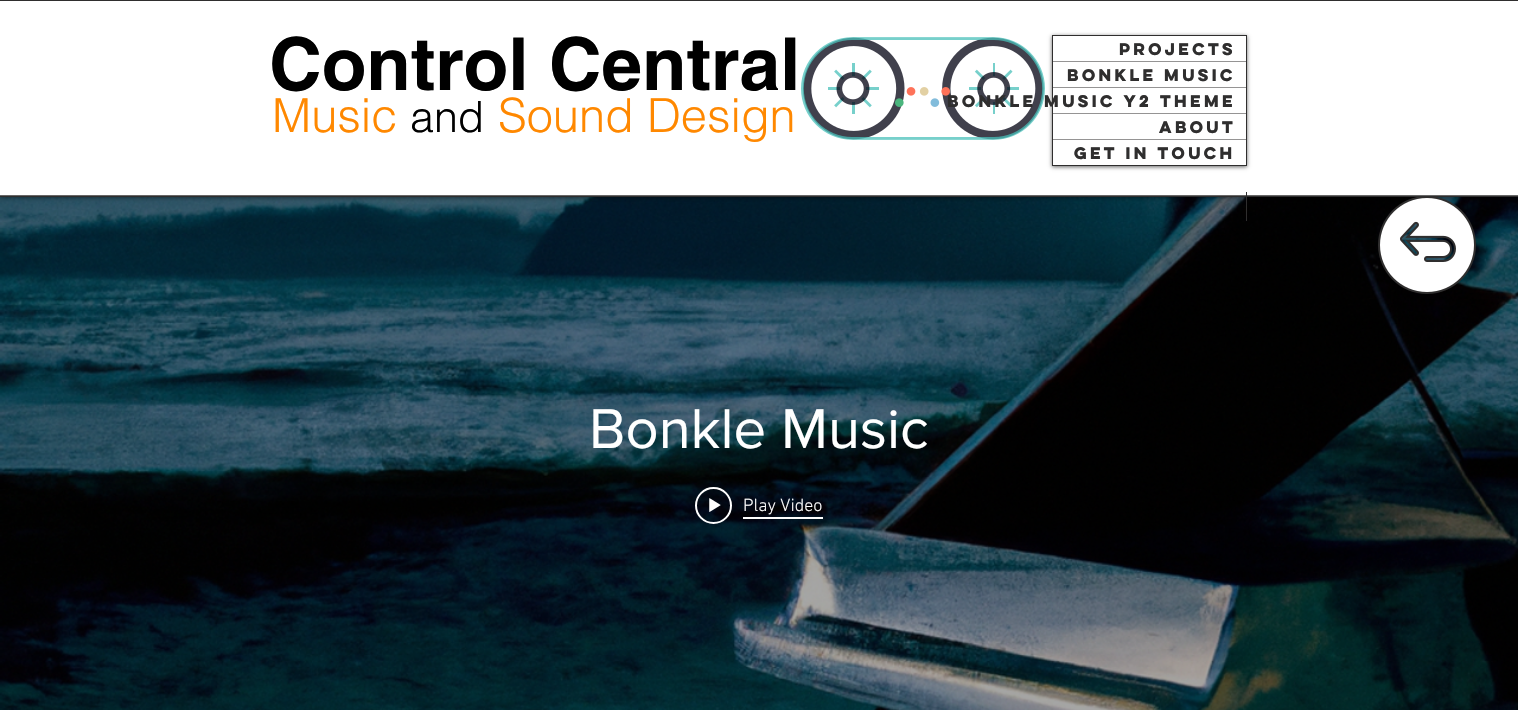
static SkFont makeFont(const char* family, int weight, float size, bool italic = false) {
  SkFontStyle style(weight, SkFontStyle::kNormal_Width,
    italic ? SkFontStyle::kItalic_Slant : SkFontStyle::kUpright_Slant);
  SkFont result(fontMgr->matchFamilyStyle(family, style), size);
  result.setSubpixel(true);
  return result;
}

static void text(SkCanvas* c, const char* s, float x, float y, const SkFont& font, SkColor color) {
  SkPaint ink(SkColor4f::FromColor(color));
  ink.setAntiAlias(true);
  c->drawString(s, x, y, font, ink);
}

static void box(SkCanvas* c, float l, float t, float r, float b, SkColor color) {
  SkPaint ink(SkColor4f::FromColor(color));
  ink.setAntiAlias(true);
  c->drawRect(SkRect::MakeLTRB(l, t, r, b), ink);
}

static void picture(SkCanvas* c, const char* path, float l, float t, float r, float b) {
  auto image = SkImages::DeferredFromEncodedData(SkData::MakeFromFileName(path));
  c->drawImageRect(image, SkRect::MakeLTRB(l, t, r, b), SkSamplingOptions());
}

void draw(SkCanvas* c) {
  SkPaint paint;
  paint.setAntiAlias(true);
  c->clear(0xffffffff);
  picture(c, "img_04.png", 0, 197, 1518, 710);
  paint.setColor(0x99000000);
  paint.setMaskFilter(SkMaskFilter::MakeBlur(kNormal_SkBlurStyle, 2.5f));
  c->drawRect(SkRect::MakeLTRB(0, 0, 1518, 197), paint);
  paint.setMaskFilter(nullptr);
  box(c, 0, 1, 1518, 195, 0xffffffff);
  box(c, 0, 195, 1518, 196, 0xff666666);
  box(c, 0, 0, 1518, 1, 0xff2f2e2e);
  box(c, 0, 196, 1518, 197, 0xff2f2e2e);
  SkFont face1 = makeFont("helvetica", 700, 73);
  text(c, "Control Central", 269, 90, face1, 0xff000000);
  picture(c, "img_01.png", 801, 37, 1045, 140);
  c->save();
  c->clipPath(SkPathBuilder(SkPathFillType::kEvenOdd).moveTo(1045, 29).lineTo(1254, 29).lineTo(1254, 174).lineTo(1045, 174).close().moveTo(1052, 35).lineTo(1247, 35).lineTo(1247, 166).lineTo(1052, 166).close().detach(), true);
  paint.setMaskFilter(SkMaskFilter::MakeBlur(kNormal_SkBlurStyle, 2));
  c->drawRect(SkRect::MakeLTRB(1052, 36, 1247, 167), paint);
  paint.setMaskFilter(nullptr);
  c->restore();
  paint.setStyle(SkPaint::kStroke_Style);
  paint.setStrokeWidth(1);
  paint.setColor(0xff2f2e2e);
  c->drawRect(SkRect::MakeLTRB(1052.5f, 35.5f, 1246.5f, 165.5f), paint);
  box(c, 1053, 61, 1246, 62, 0xff959494);
  SkFont face2 = makeFont("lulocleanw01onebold", 700, 15);
  text(c, "Projects", 1119, 55, face2, 0xff2f2e2e);
  box(c, 1053, 87, 1246, 88, 0xff959494);
  text(c, "Bonkle Music", 1067, 81, face2, 0xff2f2e2e);
  box(c, 1053, 113, 1246, 114, 0xff959494);
  picture(c, "img_02.png", 895, 87, 950, 107);
  text(c, "Bonkle Music Y2 Theme", 947, 107, face2, 0xff2f2e2e);
  box(c, 1053, 139, 1246, 140, 0xff959494);
  text(c, "About", 1159, 133, face2, 0xff2f2e2e);
  text(c, "Get in touch", 1074, 159, face2, 0xff2f2e2e);
  SkFont face3 = makeFont("helvetica", 300, 47);
  text(c, "Music", 272, 132, face3, 0xffff8800);
  SkFont face4 = makeFont("helvetica", 300, 43);
  text(c, "and", 410, 132, face4, 0xff000000);
  text(c, "Sound Design", 498, 132, face3, 0xffff8800);
  box(c, 1246, 192, 1247, 221, 0xff2f2e2e);
  picture(c, "img_03.png", 1378, 197, 1476, 294);
  SkFont face5 = makeFont("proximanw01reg", 400, 58);
  text(c, "Bonkle Music", 589, 448, face5, 0xffffffff);
  paint.setStrokeWidth(2);
  paint.setColor(0xffffffff);
  c->drawCircle(713.5f, 505.5f, 17.5f, paint);
  picture(c, "img_05.png", 709, 498, 721, 512);
  box(c, 743, 517, 823, 519, 0xffffffff);
  SkFont face6 = makeFont("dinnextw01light", 300, 18);
  text(c, "Play Video", 743, 511, face6, 0xffffffff);
}
